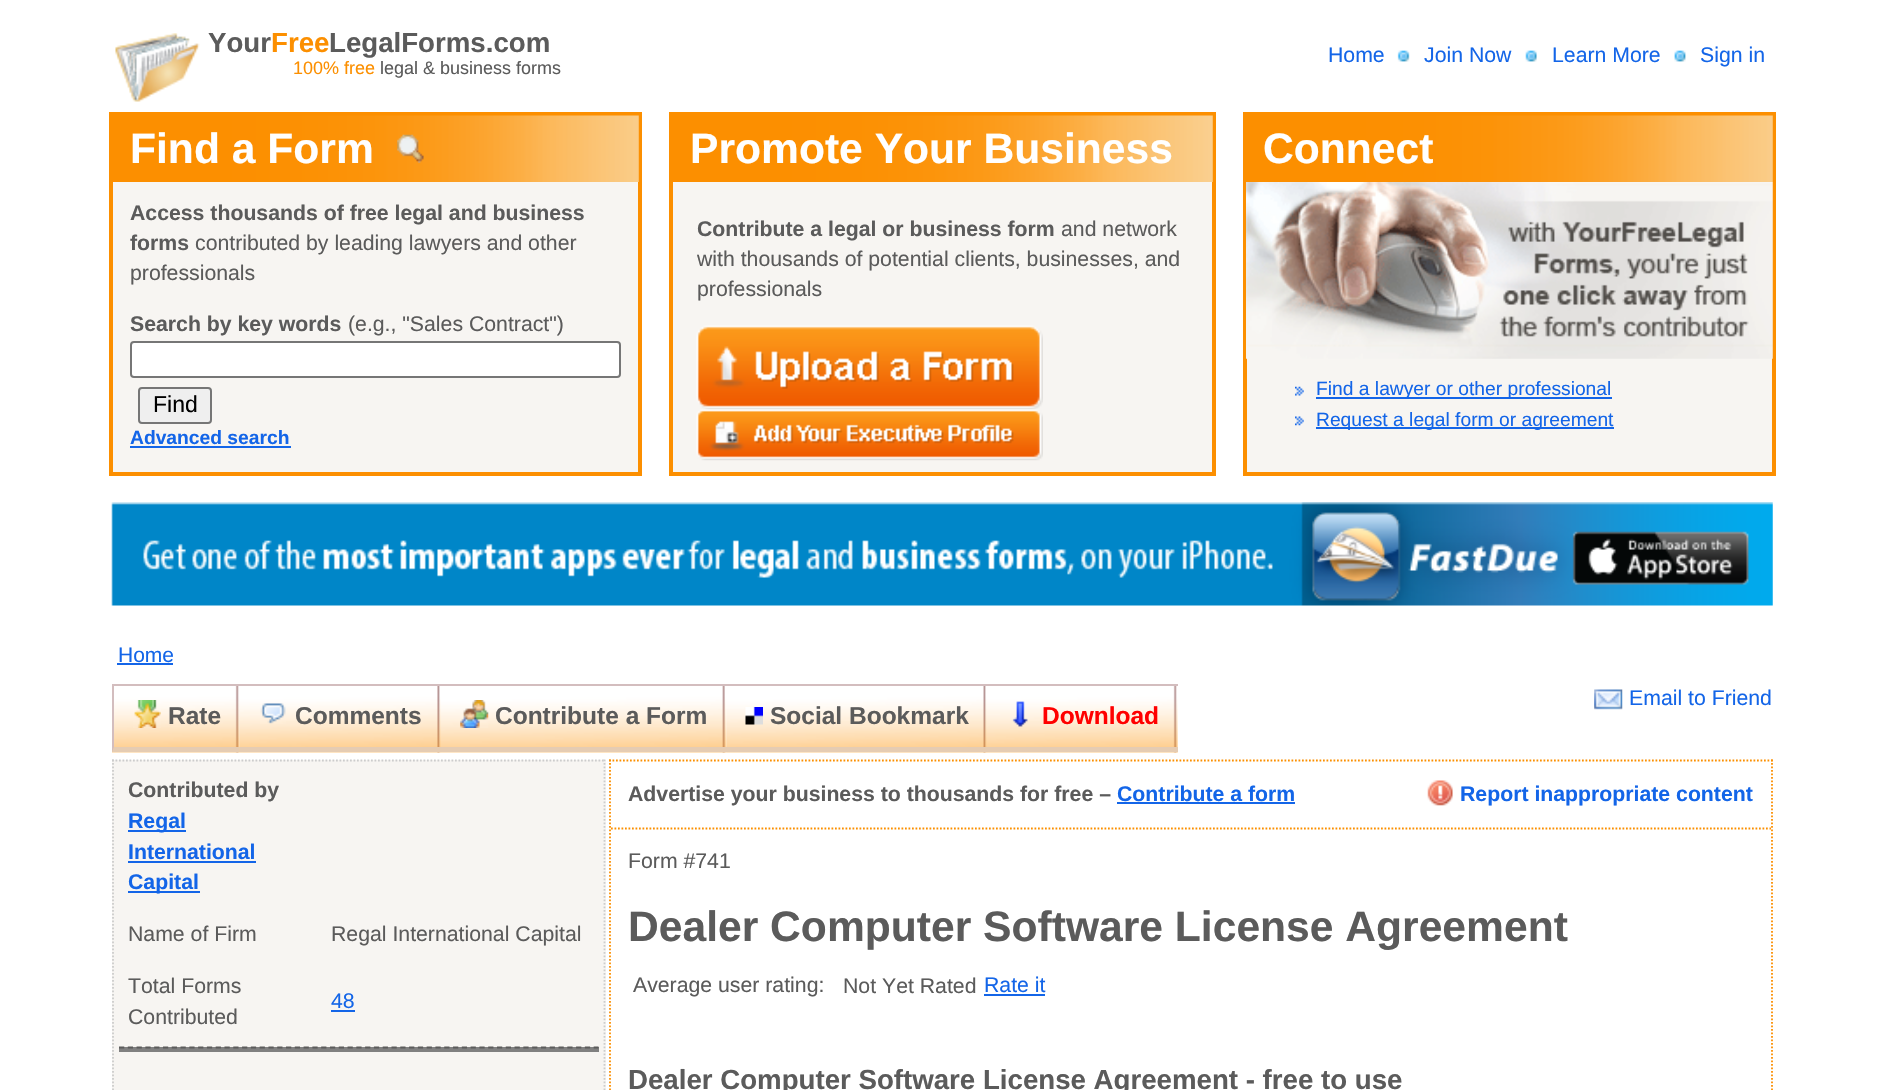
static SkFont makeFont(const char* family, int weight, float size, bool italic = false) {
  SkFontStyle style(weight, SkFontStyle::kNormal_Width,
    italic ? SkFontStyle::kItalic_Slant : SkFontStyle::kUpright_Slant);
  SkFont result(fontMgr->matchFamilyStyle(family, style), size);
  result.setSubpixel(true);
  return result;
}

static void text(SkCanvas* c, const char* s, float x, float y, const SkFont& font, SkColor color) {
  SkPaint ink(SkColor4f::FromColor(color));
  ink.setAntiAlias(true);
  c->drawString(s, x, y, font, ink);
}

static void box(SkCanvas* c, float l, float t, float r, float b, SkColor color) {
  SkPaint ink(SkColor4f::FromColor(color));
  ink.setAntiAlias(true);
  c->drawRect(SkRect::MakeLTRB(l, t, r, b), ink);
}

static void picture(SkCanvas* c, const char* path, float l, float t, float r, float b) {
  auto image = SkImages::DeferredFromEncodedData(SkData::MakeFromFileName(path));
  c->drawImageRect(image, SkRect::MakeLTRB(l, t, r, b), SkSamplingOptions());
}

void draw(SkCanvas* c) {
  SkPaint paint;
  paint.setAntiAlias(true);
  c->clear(0xffffffff);
  picture(c, "img_01.png", 115, 33, 200, 102);
  SkFont face1 = makeFont("Liberation Sans", 700, 27.65f);
  text(c, "Your", 208, 52, face1, 0xff5b5b5b);
  text(c, "Free", 271, 52, face1, 0xfffc8f00);
  text(c, "LegalForms.com", 329, 52, face1, 0xff5b5b5b);
  SkFont face2 = makeFont("Liberation Sans", 400, 18);
  text(c, "100% free", 293, 74, face2, 0xfffc8f00);
  text(c, "legal & business forms", 380, 74, face2, 0xff5b5b5b);
  SkFont face3 = makeFont("Liberation Sans", 400, 21.25f);
  text(c, "Home", 1328, 62, face3, 0xff1365e8);
  picture(c, "img_02.png", 1397, 50, 1410, 62);
  text(c, "Join Now", 1424, 62, face3, 0xff1365e8);
  picture(c, "img_03.png", 1525, 50, 1537, 62);
  text(c, "Learn More", 1552, 62, face3, 0xff1365e8);
  picture(c, "img_04.png", 1674, 50, 1686, 62);
  text(c, "Sign in", 1700, 62, face3, 0xff1365e8);
  box(c, 113, 182, 638, 472, 0xfff7f5f2);
  paint.setStyle(SkPaint::kStroke_Style);
  paint.setStrokeWidth(4);
  paint.setColor(0xfffc8f00);
  c->drawRect(SkRect::MakeLTRB(111, 114, 640, 474), paint);
  picture(c, "img_05.png", 113, 115, 639, 182);
  SkFont face4 = makeFont("Liberation Sans", 700, 42.6f);
  text(c, "Find a Form", 130, 163, face4, 0xffffffff);
  picture(c, "img_06.png", 397, 134, 424, 163);
  SkFont face5 = makeFont("Liberation Sans", 700, 21.25f);
  text(c, "Access thousands of free legal and business", 130, 220, face5, 0xff5b5b5b);
  text(c, "forms", 130, 250, face5, 0xff5b5b5b);
  text(c, "contributed by leading lawyers and other", 195, 250, face3, 0xff5b5b5b);
  text(c, "professionals", 130, 280, face3, 0xff5b5b5b);
  text(c, "Search by key words", 130, 331, face5, 0xff5b5b5b);
  text(c, "(e.g., \"Sales Contract\")", 348, 331, face3, 0xff5b5b5b);
  paint.setStyle(SkPaint::kFill_Style);
  paint.setColor(0xffffffff);
  c->drawRoundRect(SkRect::MakeLTRB(131, 342, 620, 377), 3, 3, paint);
  paint.setStyle(SkPaint::kStroke_Style);
  paint.setStrokeWidth(2);
  paint.setColor(0xff767676);
  c->drawRoundRect(SkRect::MakeLTRB(131, 342, 620, 377), 3, 3, paint);
  paint.setStyle(SkPaint::kFill_Style);
  paint.setColor(0xffefefef);
  c->drawRoundRect(SkRect::MakeLTRB(139, 388, 211, 423), 3, 3, paint);
  paint.setStyle(SkPaint::kStroke_Style);
  paint.setColor(0xff767676);
  c->drawRoundRect(SkRect::MakeLTRB(139, 388, 211, 423), 3, 3, paint);
  SkFont face6 = makeFont("Liberation Sans", 400, 23);
  text(c, "Find", 153, 412, face6, 0xff000000);
  SkFont face7 = makeFont("Liberation Sans", 700, 19.25f);
  text(c, "Advanced search", 130, 444, face7, 0xff1365e8);
  box(c, 130, 446, 291, 448, 0xff1365e8);
  box(c, 673, 182, 1212, 472, 0xfff7f5f2);
  paint.setStrokeWidth(4);
  paint.setColor(0xfffc8f00);
  c->drawRect(SkRect::MakeLTRB(671, 114, 1214, 474), paint);
  picture(c, "img_07.png", 673, 115, 1213, 182);
  text(c, "Promote Your Business", 690, 163, face4, 0xffffffff);
  text(c, "Contribute a legal or business form", 697, 236, face5, 0xff5b5b5b);
  text(c, "and network", 1061, 236, face3, 0xff5b5b5b);
  text(c, "with thousands of potential clients, businesses, and", 697, 266, face3, 0xff5b5b5b);
  text(c, "professionals", 697, 296, face3, 0xff5b5b5b);
  picture(c, "img_08.png", 696, 325, 1043, 410);
  picture(c, "img_09.png", 696, 409, 1043, 461);
  box(c, 1247, 358, 1772, 472, 0xfff7f5f2);
  c->drawRect(SkRect::MakeLTRB(1245, 114, 1774, 474), paint);
  picture(c, "img_05.png", 1247, 115, 1773, 182);
  text(c, "Connect", 1263, 163, face4, 0xffffffff);
  picture(c, "img_10.png", 1246, 182, 1773, 359);
  picture(c, "img_11.png", 1295, 386, 1304, 396);
  box(c, 1316, 397, 1612, 399, 0xff1365e8);
  SkFont face8 = makeFont("Liberation Sans", 400, 19.25f);
  text(c, "Find a lawyer or other professional", 1316, 395, face8, 0xff1365e8);
  picture(c, "img_12.png", 1295, 416, 1304, 426);
  box(c, 1316, 427, 1614, 429, 0xff1365e8);
  text(c, "Request a legal form or agreement", 1316, 426, face8, 0xff1365e8);
  picture(c, "img_13.png", 111, 502, 1773, 606);
  SkFont face9 = makeFont("Liberation Sans", 400, 21);
  text(c, "Home", 118, 662, face9, 0xff1365e8);
  box(c, 117, 663, 173, 665, 0xff1365e8);
  picture(c, "img_14.png", 1594, 689, 1623, 710);
  text(c, "Email to Friend", 1629, 705, face3, 0xff1365e8);
  picture(c, "img_15.png", 112, 686, 240, 753);
  box(c, 112, 684, 1178, 686, 0xffd3bdbe);
  paint.setStyle(SkPaint::kFill_Style);
  paint.setColor(0xffe5ccb3);
  c->drawPath(SkPathBuilder().moveTo(240, 752).lineTo(112, 752).lineTo(114, 747).lineTo(240, 747).close().detach(), paint);
  paint.setColor(0xffd3bdbe);
  c->drawPath(SkPathBuilder().moveTo(112, 752).lineTo(112, 684).lineTo(114, 686).lineTo(114, 747).close().detach(), paint);
  picture(c, "img_16.png", 133, 700, 161, 728);
  SkFont face10 = makeFont("Liberation Sans", 700, 24.5f);
  text(c, "Rate", 168, 724, face10, 0xff5b5b5b);
  picture(c, "img_17.png", 239, 686, 441, 753);
  box(c, 240, 747, 441, 752, 0xffe5ccb3);
  picture(c, "img_18.png", 260, 703, 286, 724);
  text(c, "Comments", 295, 724, face10, 0xff5b5b5b);
  picture(c, "img_19.png", 441, 686, 727, 753);
  box(c, 441, 747, 726, 752, 0xffe5ccb3);
  picture(c, "img_20.png", 460, 700, 489, 728);
  text(c, "Contribute a Form", 495, 724, face10, 0xff5b5b5b);
  picture(c, "img_21.png", 726, 686, 987, 753);
  box(c, 726, 747, 987, 752, 0xffe5ccb3);
  picture(c, "img_22.png", 745, 707, 763, 725);
  text(c, "Social Bookmark", 770, 724, face10, 0xff5b5b5b);
  picture(c, "img_23.png", 987, 686, 1178, 753);
  box(c, 987, 747, 1178, 752, 0xffe5ccb3);
  picture(c, "img_24.png", 1012, 701, 1028, 727);
  text(c, "Download", 1042, 724, face10, 0xffff0000);
  box(c, 112, 760, 606, 1090, 0xfff7f5f2);
  paint.setStyle(SkPaint::kStroke_Style);
  paint.setStrokeWidth(1.8f);
  paint.setColor(0xffcccccc);
  paint.setPathEffect(SkDashPathEffect::Make({{1.75f, 1.75f}}, 0));
  c->drawPath(SkPathBuilder().moveTo(112, 760.5f).lineTo(605.5f, 760.5f).detach(), paint);
  paint.setPathEffect(nullptr);
  paint.setPathEffect(SkDashPathEffect::Make({{1.75f, 1.75f}}, 0));
  c->drawPath(SkPathBuilder().moveTo(604.5f, 759.5f).lineTo(604.5f, 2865).detach(), paint);
  paint.setPathEffect(nullptr);
  paint.setPathEffect(SkDashPathEffect::Make({{1.75f, 1.75f}}, 0));
  c->drawPath(SkPathBuilder().moveTo(113, 759.5f).lineTo(113, 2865).detach(), paint);
  paint.setPathEffect(nullptr);
  text(c, "Contributed by", 128, 797, face5, 0xff5b5b5b);
  box(c, 128, 830, 186, 832, 0xff1365e8);
  text(c, "Regal", 128, 828, face5, 0xff1365e8);
  text(c, "International", 128, 859, face5, 0xff1365e8);
  box(c, 128, 861, 256, 863, 0xff1365e8);
  box(c, 128, 891, 200, 893, 0xff1365e8);
  text(c, "Capital", 128, 889, face5, 0xff1365e8);
  text(c, "Name of Firm", 128, 941, face3, 0xff5b5b5b);
  text(c, "Regal International Capital", 331, 941, face3, 0xff5b5b5b);
  text(c, "Total Forms", 128, 993, face3, 0xff5b5b5b);
  text(c, "Contributed", 128, 1024, face3, 0xff5b5b5b);
  text(c, "48", 331, 1008, face3, 0xff1365e8);
  box(c, 331, 1010, 355, 1012, 0xff1365e8);
  box(c, 119, 1047, 599, 1052, 0xff808080);
  paint.setColor(0xff5b5b5b);
  paint.setPathEffect(SkDashPathEffect::Make({{5.25f, 3.54f}}, 0));
  c->drawPath(SkPathBuilder().moveTo(119, 1047.5f).lineTo(598.5f, 1047.5f).detach(), paint);
  paint.setPathEffect(nullptr);
  paint.setColor(0xfffc8f00);
  paint.setPathEffect(SkDashPathEffect::Make({{1.75f, 1.75f}}, 0));
  c->drawPath(SkPathBuilder().moveTo(609, 760.5f).lineTo(1773, 760.5f).detach(), paint);
  paint.setPathEffect(nullptr);
  paint.setPathEffect(SkDashPathEffect::Make({{1.75f, 1.75f}}, 0));
  c->drawPath(SkPathBuilder().moveTo(1772, 759.5f).lineTo(1772, 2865).detach(), paint);
  paint.setPathEffect(nullptr);
  paint.setPathEffect(SkDashPathEffect::Make({{1.75f, 1.75f}}, 0));
  c->drawPath(SkPathBuilder().moveTo(610, 759.5f).lineTo(610, 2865).detach(), paint);
  paint.setPathEffect(nullptr);
  text(c, "Advertise your business to thousands for free –", 628, 801, face5, 0xff5b5b5b);
  text(c, "Contribute a form", 1117, 801, face5, 0xff1365e8);
  box(c, 1117, 802, 1295, 804, 0xff1365e8);
  picture(c, "img_25.png", 1427, 780, 1453, 806);
  text(c, "Report inappropriate content", 1460, 801, face5, 0xff1365e8);
  paint.setPathEffect(SkDashPathEffect::Make({{1.75f, 1.75f}}, 0));
  c->drawPath(SkPathBuilder().moveTo(611, 828.5f).lineTo(1771, 828.5f).detach(), paint);
  paint.setPathEffect(nullptr);
  text(c, "Form #741", 628, 868, face3, 0xff5b5b5b);
  text(c, "Dealer Computer Software License Agreement", 628, 941, face4, 0xff5b5b5b);
  text(c, "Average user rating:", 633, 992, face3, 0xff5b5b5b);
  text(c, "Not Yet Rated", 843, 993, face3, 0xff5b5b5b);
  text(c, "Rate it", 984, 992, face3, 0xff1365e8);
  box(c, 984, 994, 1045, 996, 0xff1365e8);
  text(c, "Dealer Computer Software License Agreement - free to use", 628, 1089, face1, 0xff5b5b5b);
}
